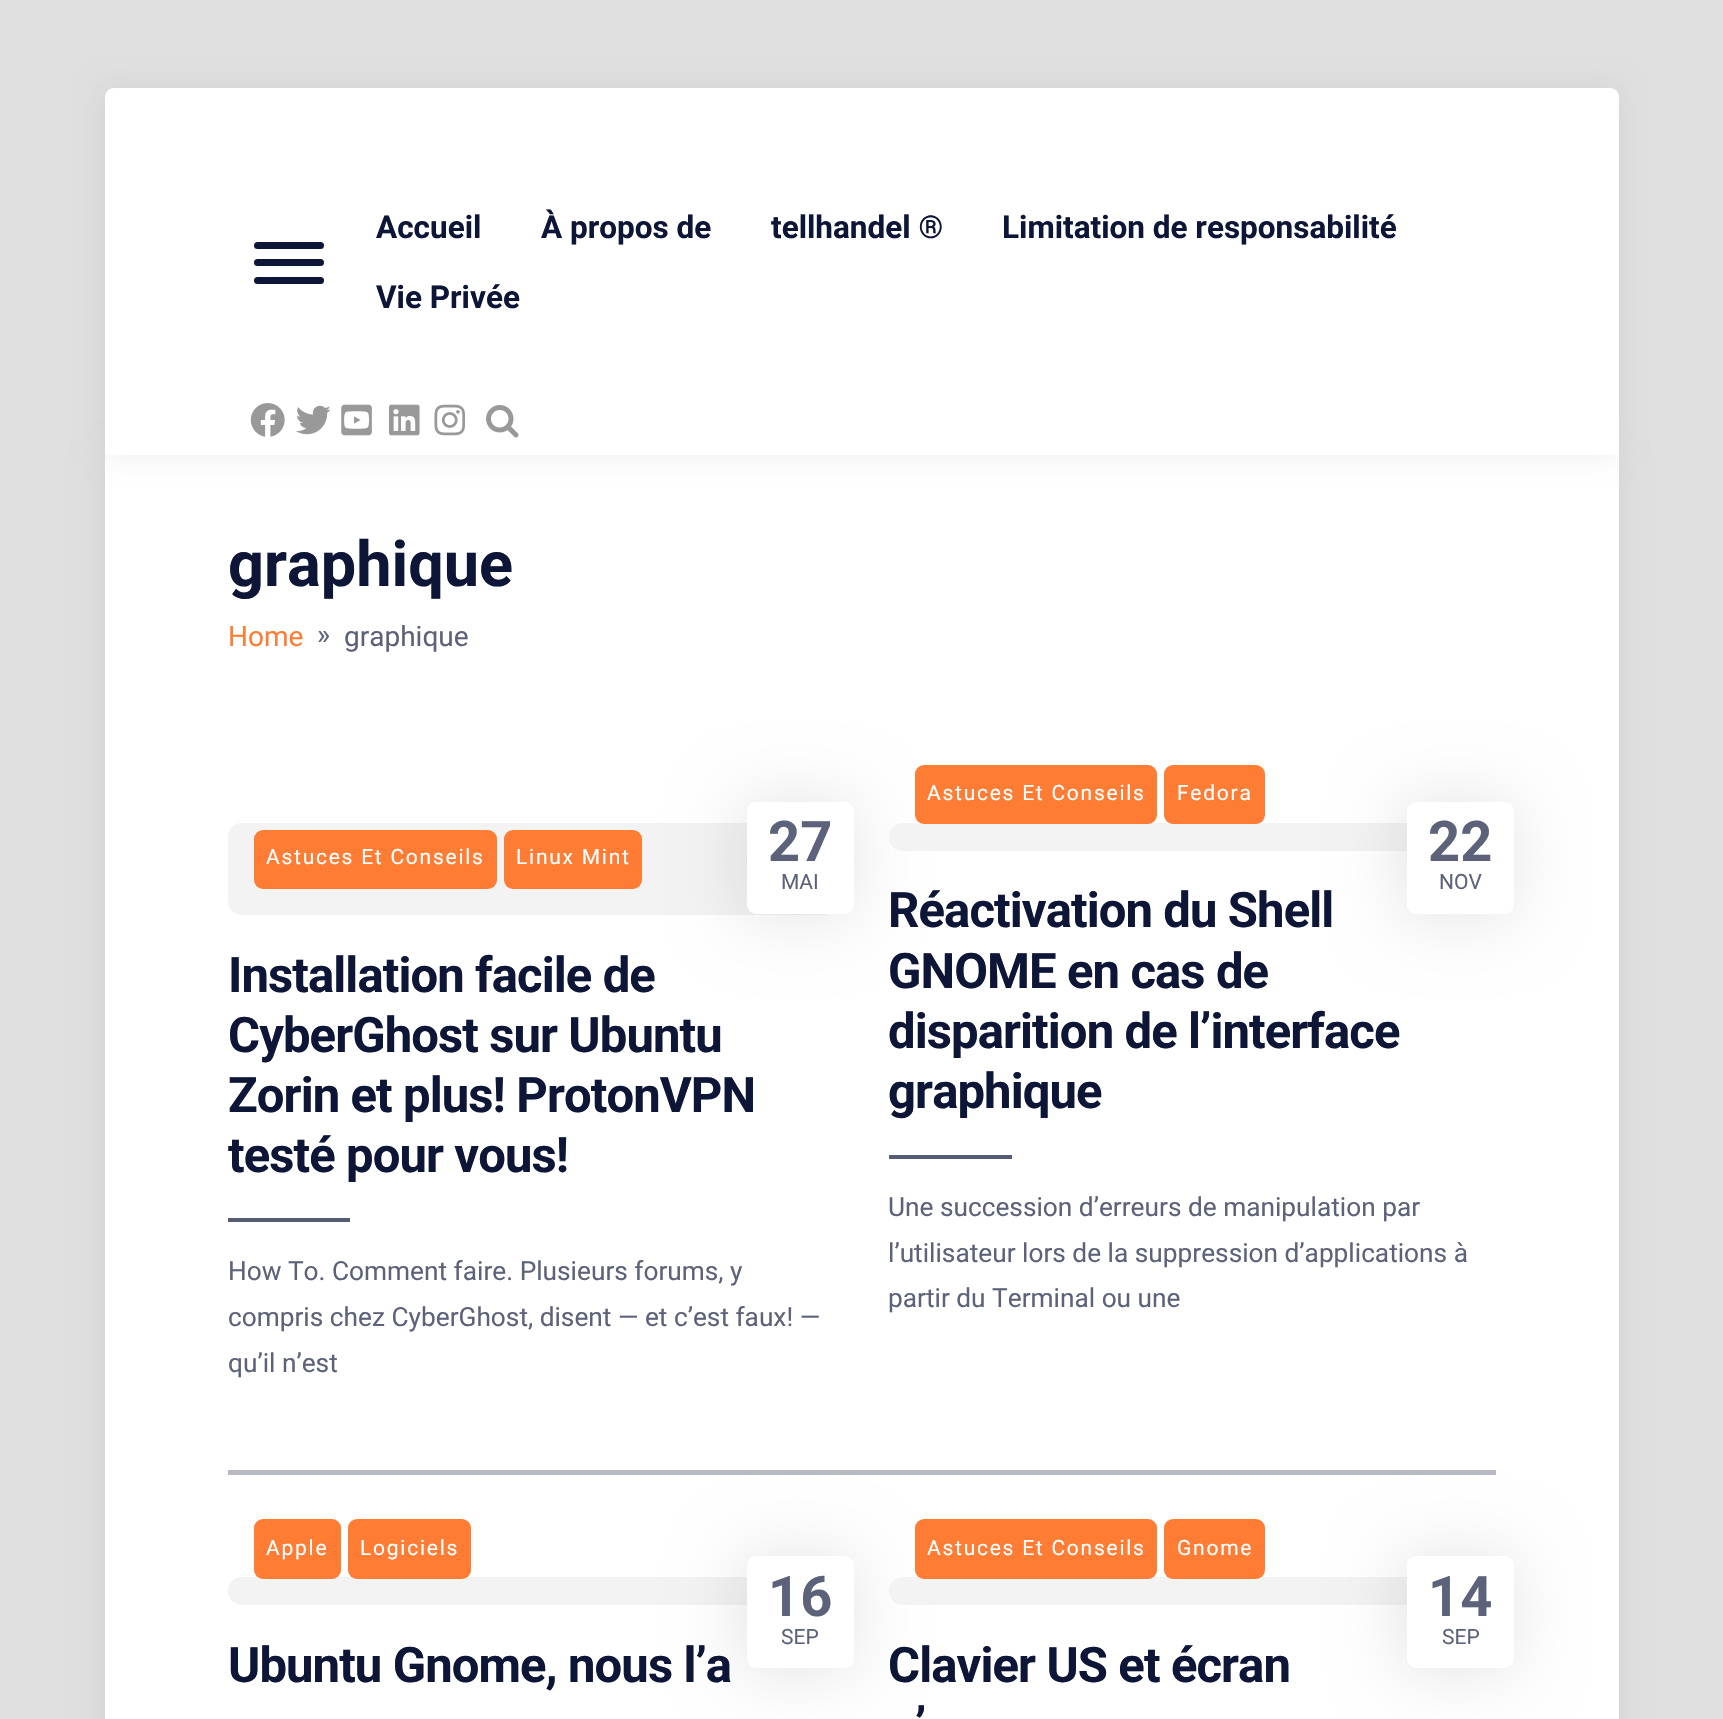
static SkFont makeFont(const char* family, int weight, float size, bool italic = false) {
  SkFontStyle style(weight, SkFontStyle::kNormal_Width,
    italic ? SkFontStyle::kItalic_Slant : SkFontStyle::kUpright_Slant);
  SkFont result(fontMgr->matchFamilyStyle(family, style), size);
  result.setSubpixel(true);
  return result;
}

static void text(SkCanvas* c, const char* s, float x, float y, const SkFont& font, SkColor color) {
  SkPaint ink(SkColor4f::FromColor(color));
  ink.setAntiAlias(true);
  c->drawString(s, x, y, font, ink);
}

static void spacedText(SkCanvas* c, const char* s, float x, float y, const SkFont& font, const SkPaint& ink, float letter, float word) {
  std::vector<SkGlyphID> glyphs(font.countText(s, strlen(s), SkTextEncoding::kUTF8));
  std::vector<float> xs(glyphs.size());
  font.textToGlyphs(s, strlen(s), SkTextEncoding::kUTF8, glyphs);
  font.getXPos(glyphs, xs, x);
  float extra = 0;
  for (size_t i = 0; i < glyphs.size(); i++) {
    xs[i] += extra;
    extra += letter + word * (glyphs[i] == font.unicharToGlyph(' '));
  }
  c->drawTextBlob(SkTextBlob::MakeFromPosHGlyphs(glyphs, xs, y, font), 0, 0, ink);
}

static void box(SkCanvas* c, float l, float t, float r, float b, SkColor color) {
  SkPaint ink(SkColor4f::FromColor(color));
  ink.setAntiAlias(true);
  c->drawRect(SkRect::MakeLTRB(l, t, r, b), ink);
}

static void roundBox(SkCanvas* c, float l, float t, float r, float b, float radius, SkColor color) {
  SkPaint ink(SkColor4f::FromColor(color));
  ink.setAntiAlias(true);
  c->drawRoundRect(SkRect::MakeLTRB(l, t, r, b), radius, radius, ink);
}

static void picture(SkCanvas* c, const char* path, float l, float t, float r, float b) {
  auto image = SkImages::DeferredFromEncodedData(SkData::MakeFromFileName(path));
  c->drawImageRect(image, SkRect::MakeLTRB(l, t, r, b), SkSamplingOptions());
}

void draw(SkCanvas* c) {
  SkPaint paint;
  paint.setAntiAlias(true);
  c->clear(0xffe0e0e0);
  paint.setColor(0x12000000);
  paint.setMaskFilter(SkMaskFilter::MakeBlur(kNormal_SkBlurStyle, 14));
  c->drawRect(SkRect::MakeLTRB(103, 455, 1617, 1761), paint);
  paint.setMaskFilter(nullptr);
  box(c, 105, 455, 1619, 1719, 0xffffffff);
  paint.setMaskFilter(SkMaskFilter::MakeBlur(kNormal_SkBlurStyle, 14));
  c->drawRoundRect(SkRect::MakeLTRB(103, 88, 1617, 455), 9, 9, paint);
  paint.setMaskFilter(nullptr);
  paint.setColor(0xffffffff);
  c->drawPath(SkPathBuilder().moveTo(114, 88).lineTo(1610, 88).cubicTo(1615, 88, 1619, 92, 1619, 97).lineTo(1619, 455).lineTo(105, 455).lineTo(105, 97).cubicTo(105, 92, 109, 88, 114, 88).close().detach(), paint);
  roundBox(c, 254, 242, 324, 249, 3.5f, 0xff0e1638);
  roundBox(c, 254, 259, 324, 266, 3.5f, 0xff0e1638);
  roundBox(c, 254, 277, 324, 284, 3.5f, 0xff0e1638);
  SkFont face1 = makeFont("Roboto", 700, 31.5f);
  text(c, "Accueil", 376, 238, face1, 0xff0e1638);
  text(c, "À propos de", 541, 238, face1, 0xff0e1638);
  text(c, "tellhandel ®", 771, 238, face1, 0xff0e1638);
  text(c, "Limitation de responsabilité", 1002, 238, face1, 0xff0e1638);
  text(c, "Vie Privée", 376, 308, face1, 0xff0e1638);
  picture(c, "img_01.png", 250, 403, 285, 437);
  picture(c, "img_02.png", 296, 405, 331, 435);
  picture(c, "img_03.png", 341, 404, 372, 436);
  picture(c, "img_04.png", 388, 404, 420, 436);
  picture(c, "img_05.png", 434, 404, 466, 436);
  picture(c, "img_06.png", 486, 405, 519, 438);
  SkFont face2 = makeFont("Roboto", 700, 63);
  text(c, "graphique", 228, 586, face2, 0xff0e1638);
  SkFont face3 = makeFont("Roboto", 400, 28);
  text(c, "Home", 228, 646, face3, 0xffff7c34);
  text(c, "»", 317, 644, face3, 0xff5c6279);
  text(c, "graphique", 344, 646, face3, 0xff5c6279);
  roundBox(c, 228, 823, 837, 915, 14, 0xfff3f3f3);
  roundBox(c, 254, 830, 497, 889, 9, 0xffff7c34);
  SkFont face4 = makeFont("Roboto", 400, 21);
  spacedText(c, "Astuces Et Conseils", 266, 864, face4, paint, 1.75f, 0);
  paint.setColor(0x1a000000);
  paint.setMaskFilter(SkMaskFilter::MakeBlur(kNormal_SkBlurStyle, 33));
  c->drawRoundRect(SkRect::MakeLTRB(740, 800, 854, 919), 12, 12, paint);
  paint.setMaskFilter(nullptr);
  roundBox(c, 504, 830, 642, 889, 9, 0xffff7c34);
  paint.setColor(0xffffffff);
  spacedText(c, "Linux Mint", 516, 864, face4, paint, 1.75f, 0);
  roundBox(c, 747, 802, 854, 914, 9, 0xffffffff);
  SkFont face5 = makeFont("Roboto", 700, 56);
  text(c, "27", 768, 861, face5, 0xff5c6279);
  text(c, "MAI", 781, 889, face4, 0xff5c6279);
  SkFont face6 = makeFont("Roboto", 700, 49);
  paint.setColor(0xff0e1638);
  spacedText(c, "Installation facile de", 228, 992, face6, paint, -0.9f, 0);
  spacedText(c, "CyberGhost sur Ubuntu", 228, 1052, face6, paint, -0.9f, 0);
  spacedText(c, "Zorin et plus! ProtonVPN", 228, 1112, face6, paint, -0.9f, 0);
  spacedText(c, "testé pour vous!", 228, 1172, face6, paint, -0.9f, 0);
  box(c, 228, 1218, 350, 1222, 0xff565c74);
  SkFont face7 = makeFont("Roboto", 400, 26.25f);
  text(c, "How To. Comment faire. Plusieurs forums, y", 228, 1280, face7, 0xff5c6279);
  text(c, "compris chez CyberGhost, disent — et c’est faux! —", 228, 1326, face7, 0xff5c6279);
  text(c, "qu’il n’est", 228, 1372, face7, 0xff5c6279);
  roundBox(c, 889, 823, 1496, 851, 14, 0xfff3f3f3);
  roundBox(c, 915, 765, 1157, 824, 9, 0xffff7c34);
  paint.setColor(0xffffffff);
  spacedText(c, "Astuces Et Conseils", 927, 800, face4, paint, 1.75f, 0);
  roundBox(c, 1164, 765, 1265, 824, 9, 0xffff7c34);
  spacedText(c, "Fedora", 1177, 800, face4, paint, 1.75f, 0);
  paint.setColor(0x1a000000);
  paint.setMaskFilter(SkMaskFilter::MakeBlur(kNormal_SkBlurStyle, 33));
  c->drawRoundRect(SkRect::MakeLTRB(1400, 800, 1514, 919), 12, 12, paint);
  paint.setMaskFilter(nullptr);
  roundBox(c, 1407, 802, 1514, 914, 9, 0xffffffff);
  text(c, "22", 1428, 861, face5, 0xff5c6279);
  text(c, "NOV", 1439, 889, face4, 0xff5c6279);
  paint.setColor(0xff0e1638);
  spacedText(c, "Réactivation du Shell", 888, 927, face6, paint, -0.9f, 0);
  spacedText(c, "GNOME en cas de", 888, 988, face6, paint, -0.9f, 0);
  spacedText(c, "disparition de l’interface", 888, 1048, face6, paint, -0.9f, 0);
  spacedText(c, "graphique", 888, 1108, face6, paint, -0.9f, 0);
  box(c, 889, 1155, 1012, 1159, 0xff565c74);
  text(c, "Une succession d’erreurs de manipulation par", 888, 1216, face7, 0xff5c6279);
  text(c, "l’utilisateur lors de la suppression d’applications à", 888, 1262, face7, 0xff5c6279);
  text(c, "partir du Terminal ou une", 888, 1307, face7, 0xff5c6279);
  box(c, 228, 1470, 1496, 1475, 0xffb7b9c3);
  roundBox(c, 228, 1577, 837, 1605, 14, 0xfff3f3f3);
  roundBox(c, 254, 1519, 341, 1579, 9, 0xffff7c34);
  paint.setColor(0xffffffff);
  spacedText(c, "Apple", 266, 1555, face4, paint, 1.75f, 0);
  roundBox(c, 348, 1519, 471, 1579, 9, 0xffff7c34);
  spacedText(c, "Logiciels", 360, 1555, face4, paint, 1.75f, 0);
  paint.setColor(0x1a000000);
  paint.setMaskFilter(SkMaskFilter::MakeBlur(kNormal_SkBlurStyle, 33));
  c->drawRoundRect(SkRect::MakeLTRB(740, 1554, 854, 1673), 12, 12, paint);
  paint.setMaskFilter(nullptr);
  roundBox(c, 747, 1556, 854, 1668, 9, 0xffffffff);
  text(c, "16", 768, 1616, face5, 0xff5c6279);
  text(c, "SEP", 781, 1644, face4, 0xff5c6279);
  paint.setColor(0xff0e1638);
  spacedText(c, "Ubuntu Gnome, nous l’a", 228, 1682, face6, paint, -0.9f, 0);
  roundBox(c, 889, 1577, 1496, 1605, 14, 0xfff3f3f3);
  roundBox(c, 915, 1519, 1157, 1579, 9, 0xffff7c34);
  paint.setColor(0xffffffff);
  spacedText(c, "Astuces Et Conseils", 927, 1555, face4, paint, 1.75f, 0);
  roundBox(c, 1164, 1519, 1265, 1579, 9, 0xffff7c34);
  spacedText(c, "Gnome", 1177, 1555, face4, paint, 1.75f, 0);
  paint.setColor(0x1a000000);
  paint.setMaskFilter(SkMaskFilter::MakeBlur(kNormal_SkBlurStyle, 33));
  c->drawRoundRect(SkRect::MakeLTRB(1400, 1554, 1514, 1673), 12, 12, paint);
  paint.setMaskFilter(nullptr);
  roundBox(c, 1407, 1556, 1514, 1668, 9, 0xffffffff);
  text(c, "14", 1428, 1616, face5, 0xff5c6279);
  text(c, "SEP", 1442, 1644, face4, 0xff5c6279);
  paint.setColor(0xff0e1638);
  spacedText(c, "Clavier US et écran", 888, 1682, face6, paint, -0.9f, 0);
  spacedText(c, "’", 915, 1742, face6, paint, -0.9f, 0);
}
